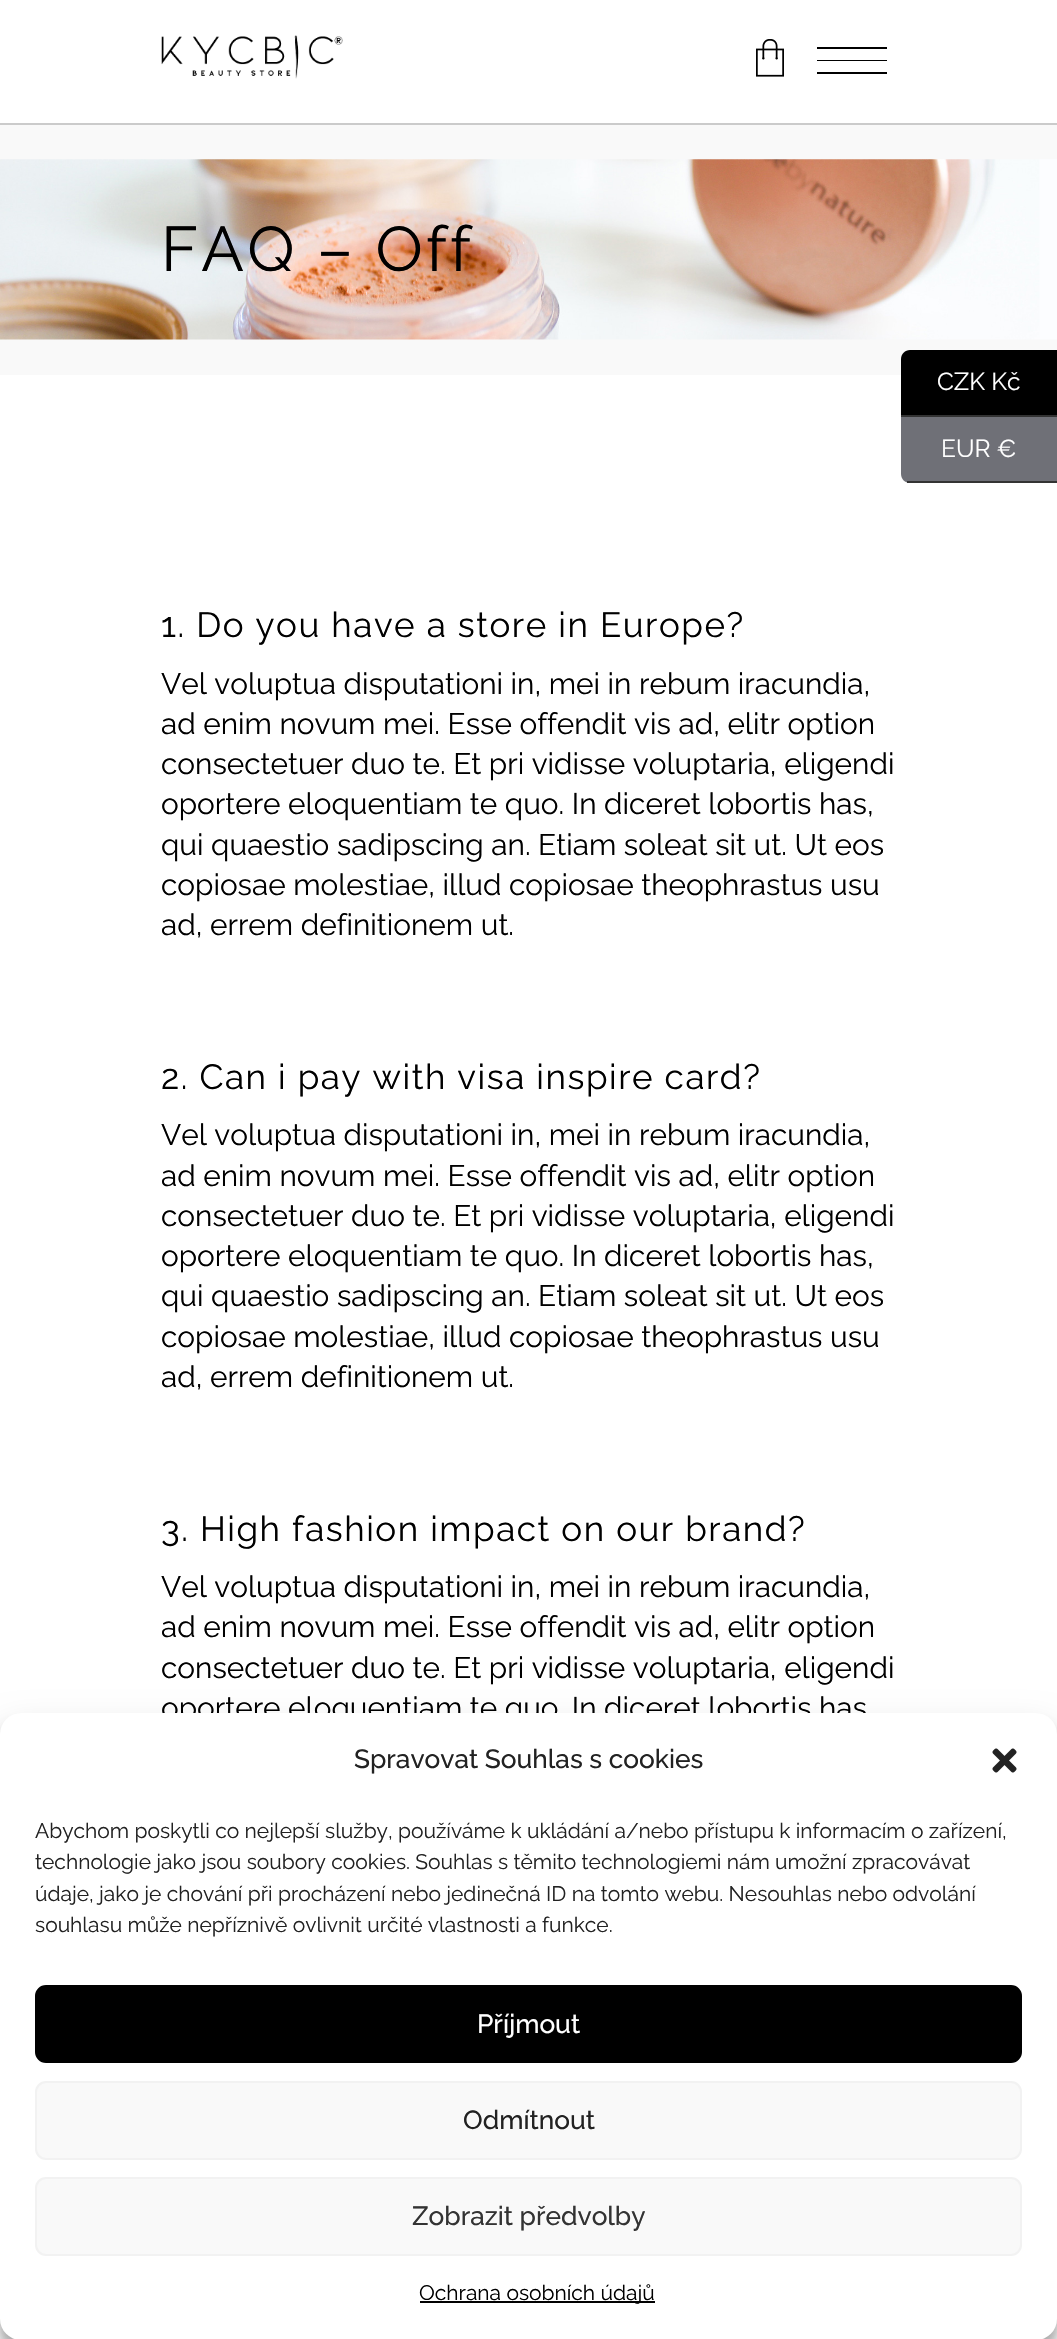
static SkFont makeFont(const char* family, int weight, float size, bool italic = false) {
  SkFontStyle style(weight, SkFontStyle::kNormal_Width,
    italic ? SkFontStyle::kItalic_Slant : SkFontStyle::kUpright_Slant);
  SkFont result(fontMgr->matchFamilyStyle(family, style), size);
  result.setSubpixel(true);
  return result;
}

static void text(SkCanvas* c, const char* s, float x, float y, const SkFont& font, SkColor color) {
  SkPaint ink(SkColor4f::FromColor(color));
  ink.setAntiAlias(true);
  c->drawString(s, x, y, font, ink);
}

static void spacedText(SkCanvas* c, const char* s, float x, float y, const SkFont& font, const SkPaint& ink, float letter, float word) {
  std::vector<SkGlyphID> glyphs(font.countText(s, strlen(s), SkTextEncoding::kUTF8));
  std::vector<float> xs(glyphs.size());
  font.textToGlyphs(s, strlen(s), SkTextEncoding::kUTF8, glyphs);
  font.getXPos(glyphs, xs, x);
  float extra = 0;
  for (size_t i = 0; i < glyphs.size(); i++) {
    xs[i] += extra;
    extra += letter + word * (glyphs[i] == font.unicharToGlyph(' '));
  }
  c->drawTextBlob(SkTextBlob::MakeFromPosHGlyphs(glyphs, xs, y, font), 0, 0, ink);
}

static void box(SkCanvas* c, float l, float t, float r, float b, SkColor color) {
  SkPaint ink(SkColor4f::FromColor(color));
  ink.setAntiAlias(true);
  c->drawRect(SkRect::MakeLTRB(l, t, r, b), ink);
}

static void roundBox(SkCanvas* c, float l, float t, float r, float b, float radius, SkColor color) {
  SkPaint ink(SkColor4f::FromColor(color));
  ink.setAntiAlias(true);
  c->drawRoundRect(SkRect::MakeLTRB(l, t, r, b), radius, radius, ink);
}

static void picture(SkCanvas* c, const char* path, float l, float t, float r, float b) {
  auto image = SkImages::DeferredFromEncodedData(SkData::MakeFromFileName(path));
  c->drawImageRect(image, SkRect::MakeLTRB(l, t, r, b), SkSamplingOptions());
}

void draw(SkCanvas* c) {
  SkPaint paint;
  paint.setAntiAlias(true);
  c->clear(0xffffffff);
  box(c, 0, 123, 1057, 125, 0xffcbcbcb);
  picture(c, "img_01.png", 161, 35, 343, 79);
  picture(c, "img_02.png", 756, 39, 784, 77);
  box(c, 817, 47, 887, 49, 0xff000000);
  box(c, 817, 60, 887, 61, 0xff000000);
  box(c, 817, 72, 887, 74, 0xff000000);
  box(c, 0, 125, 1057, 375, 0xfff9f9f9);
  picture(c, "img_03.png", 0, 159, 1057, 340);
  SkFont face1 = makeFont("Raleway", 400, 63);
  paint.setColor(0xff000000);
  spacedText(c, "FAQ – Off", 161, 271, face1, paint, 3.25f, 0);
  SkFont face2 = makeFont("Raleway", 400, 35);
  spacedText(c, "1. Do you have a store in Europe?", 161, 637, face2, paint, 1.55f, 0);
  SkFont face3 = makeFont("Raleway", 400, 29.75f);
  text(c, "Vel voluptua disputationi in, mei in rebum iracundia,", 161, 694, face3, 0xff000000);
  text(c, "ad enim novum mei. Esse offendit vis ad, elitr option", 161, 734, face3, 0xff000000);
  text(c, "consectetuer duo te. Et pri vidisse voluptaria, eligendi", 161, 774, face3, 0xff000000);
  text(c, "oportere eloquentiam te quo. In diceret lobortis has,", 161, 814, face3, 0xff000000);
  text(c, "qui quaestio sadipscing an. Etiam soleat sit ut. Ut eos", 161, 855, face3, 0xff000000);
  text(c, "copiosae molestiae, illud copiosae theophrastus usu", 161, 895, face3, 0xff000000);
  text(c, "ad, errem definitionem ut.", 161, 935, face3, 0xff000000);
  spacedText(c, "2. Can i pay with visa inspire card?", 161, 1089, face2, paint, 1.55f, 0);
  text(c, "Vel voluptua disputationi in, mei in rebum iracundia,", 161, 1145, face3, 0xff000000);
  text(c, "ad enim novum mei. Esse offendit vis ad, elitr option", 161, 1186, face3, 0xff000000);
  text(c, "consectetuer duo te. Et pri vidisse voluptaria, eligendi", 161, 1226, face3, 0xff000000);
  text(c, "oportere eloquentiam te quo. In diceret lobortis has,", 161, 1266, face3, 0xff000000);
  text(c, "qui quaestio sadipscing an. Etiam soleat sit ut. Ut eos", 161, 1306, face3, 0xff000000);
  text(c, "copiosae molestiae, illud copiosae theophrastus usu", 161, 1347, face3, 0xff000000);
  text(c, "ad, errem definitionem ut.", 161, 1387, face3, 0xff000000);
  spacedText(c, "3. High fashion impact on our brand?", 161, 1541, face2, paint, 1.55f, 0);
  text(c, "Vel voluptua disputationi in, mei in rebum iracundia,", 161, 1597, face3, 0xff000000);
  text(c, "ad enim novum mei. Esse offendit vis ad, elitr option", 161, 1637, face3, 0xff000000);
  text(c, "consectetuer duo te. Et pri vidisse voluptaria, eligendi", 161, 1678, face3, 0xff000000);
  text(c, "oportere eloquentiam te quo. In diceret lobortis has", 161, 1718, face3, 0xff000000);
  c->drawPath(SkPathBuilder().moveTo(910, 350).lineTo(1057, 350).lineTo(1057, 417).lineTo(901, 417).lineTo(901, 359).cubicTo(901, 354, 905, 350, 910, 350).close().detach(), paint);
  box(c, 901, 415, 1057, 417, 0xff333333);
  SkFont face4 = makeFont("Raleway", 400, 24.5f);
  text(c, "CZK Kč", 937, 390, face4, 0xffffffff);
  paint.setColor(0xff6f7077);
  c->drawPath(SkPathBuilder().moveTo(901, 417).lineTo(1057, 417).lineTo(1057, 483).lineTo(910, 483).cubicTo(905, 483, 901, 479, 901, 474).close().detach(), paint);
  box(c, 907, 481, 1057, 483, 0xff333333);
  text(c, "EUR €", 941, 457, face4, 0xffffffff);
  paint.setColor(0x3b000000);
  paint.setMaskFilter(SkMaskFilter::MakeBlur(kNormal_SkBlurStyle, 5));
  c->drawRoundRect(SkRect::MakeLTRB(0, 1724, 1057, 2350), 21, 21, paint);
  paint.setMaskFilter(nullptr);
  paint.setColor(0x30000000);
  paint.setMaskFilter(SkMaskFilter::MakeBlur(kNormal_SkBlurStyle, 17.5f));
  c->drawRoundRect(SkRect::MakeLTRB(0, 1731, 1057, 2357), 21, 21, paint);
  paint.setMaskFilter(nullptr);
  roundBox(c, 0, 1713, 1057, 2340, 21, 0xffffffff);
  SkFont face5 = makeFont("Raleway", 500, 26.25f);
  text(c, "Spravovat Souhlas s cookies", 354, 1768, face5, 0xff222222);
  picture(c, "img_04.png", 992, 1748, 1017, 1773);
  SkFont face6 = makeFont("Raleway", 400, 21);
  text(c, "Abychom poskytli co nejlepší služby, používáme k ukládání a/nebo přístupu k informacím o zařízení,", 35, 1838, face6, 0xff222222);
  text(c, "technologie jako jsou soubory cookies. Souhlas s těmito technologiemi nám umožní zpracovávat", 35, 1869, face6, 0xff222222);
  text(c, "údaje, jako je chování při procházení nebo jedinečná ID na tomto webu. Nesouhlas nebo odvolání", 35, 1901, face6, 0xff222222);
  text(c, "souhlasu může nepříznivě ovlivnit určité vlastnosti a funkce.", 35, 1932, face6, 0xff222222);
  paint.setColor(0xff000000);
  c->drawRoundRect(SkRect::MakeLTRB(36, 1986, 1021, 2062), 10, 10, paint);
  paint.setStyle(SkPaint::kStroke_Style);
  paint.setStrokeWidth(2);
  c->drawRoundRect(SkRect::MakeLTRB(36, 1986, 1021, 2062), 10, 10, paint);
  text(c, "Příjmout", 477, 2033, face5, 0xffffffff);
  paint.setStyle(SkPaint::kFill_Style);
  paint.setColor(0xfff9f9f9);
  c->drawRoundRect(SkRect::MakeLTRB(36, 2082, 1021, 2159), 10, 10, paint);
  paint.setStyle(SkPaint::kStroke_Style);
  paint.setColor(0xfff2f2f2);
  c->drawRoundRect(SkRect::MakeLTRB(36, 2082, 1021, 2159), 10, 10, paint);
  text(c, "Odmítnout", 463, 2129, face5, 0xff222222);
  paint.setStyle(SkPaint::kFill_Style);
  paint.setColor(0xfff9f9f9);
  c->drawRoundRect(SkRect::MakeLTRB(36, 2178, 1021, 2255), 10, 10, paint);
  paint.setStyle(SkPaint::kStroke_Style);
  paint.setColor(0xfff2f2f2);
  c->drawRoundRect(SkRect::MakeLTRB(36, 2178, 1021, 2255), 10, 10, paint);
  text(c, "Zobrazit předvolby", 412, 2225, face5, 0xff333333);
  box(c, 420, 2301, 655, 2303, 0xff000000);
  text(c, "Ochrana osobních údajů", 419, 2300, face6, 0xff000000);
}
